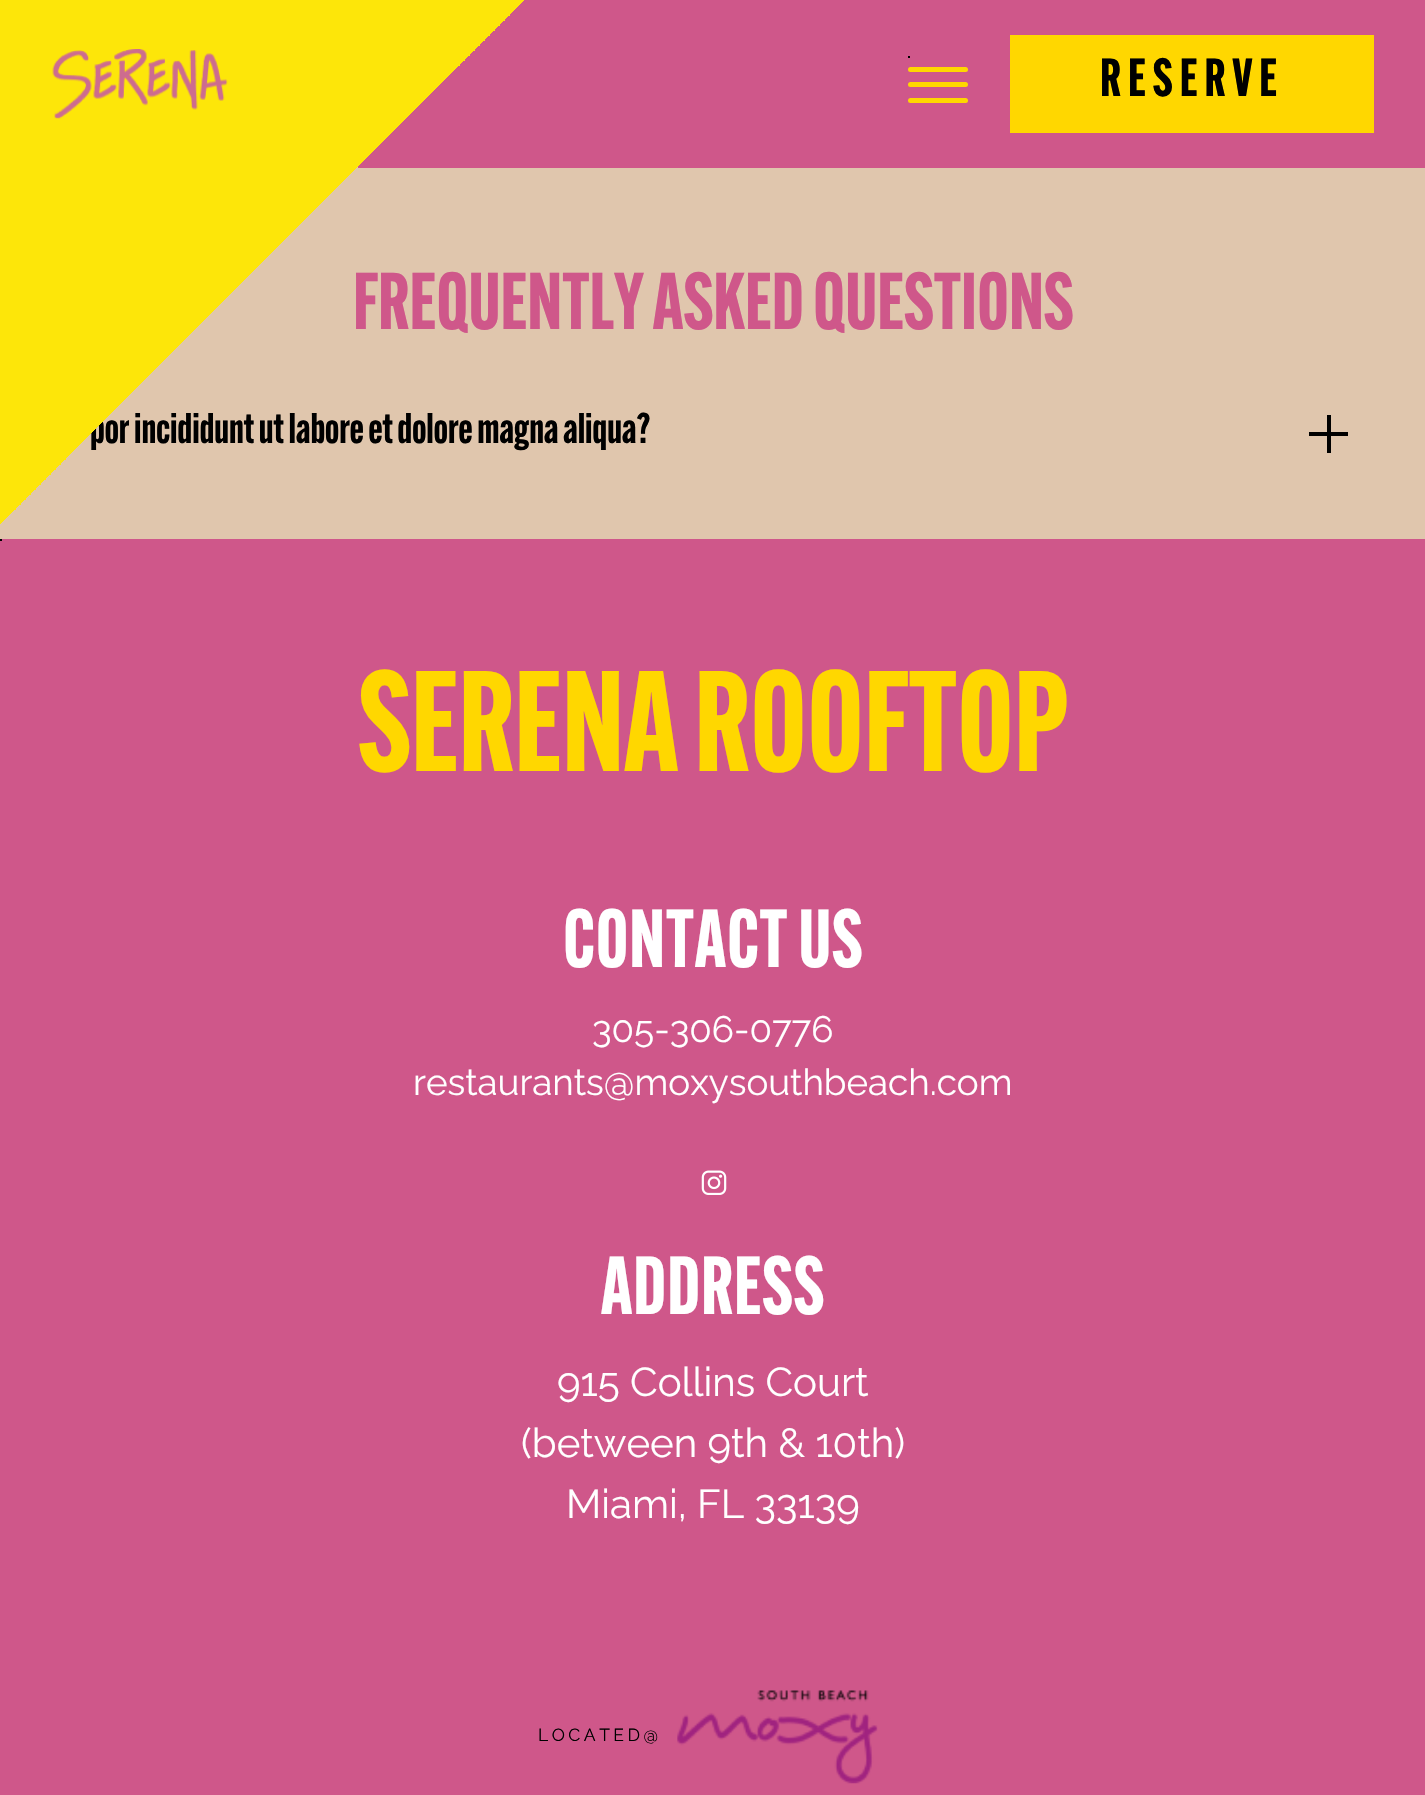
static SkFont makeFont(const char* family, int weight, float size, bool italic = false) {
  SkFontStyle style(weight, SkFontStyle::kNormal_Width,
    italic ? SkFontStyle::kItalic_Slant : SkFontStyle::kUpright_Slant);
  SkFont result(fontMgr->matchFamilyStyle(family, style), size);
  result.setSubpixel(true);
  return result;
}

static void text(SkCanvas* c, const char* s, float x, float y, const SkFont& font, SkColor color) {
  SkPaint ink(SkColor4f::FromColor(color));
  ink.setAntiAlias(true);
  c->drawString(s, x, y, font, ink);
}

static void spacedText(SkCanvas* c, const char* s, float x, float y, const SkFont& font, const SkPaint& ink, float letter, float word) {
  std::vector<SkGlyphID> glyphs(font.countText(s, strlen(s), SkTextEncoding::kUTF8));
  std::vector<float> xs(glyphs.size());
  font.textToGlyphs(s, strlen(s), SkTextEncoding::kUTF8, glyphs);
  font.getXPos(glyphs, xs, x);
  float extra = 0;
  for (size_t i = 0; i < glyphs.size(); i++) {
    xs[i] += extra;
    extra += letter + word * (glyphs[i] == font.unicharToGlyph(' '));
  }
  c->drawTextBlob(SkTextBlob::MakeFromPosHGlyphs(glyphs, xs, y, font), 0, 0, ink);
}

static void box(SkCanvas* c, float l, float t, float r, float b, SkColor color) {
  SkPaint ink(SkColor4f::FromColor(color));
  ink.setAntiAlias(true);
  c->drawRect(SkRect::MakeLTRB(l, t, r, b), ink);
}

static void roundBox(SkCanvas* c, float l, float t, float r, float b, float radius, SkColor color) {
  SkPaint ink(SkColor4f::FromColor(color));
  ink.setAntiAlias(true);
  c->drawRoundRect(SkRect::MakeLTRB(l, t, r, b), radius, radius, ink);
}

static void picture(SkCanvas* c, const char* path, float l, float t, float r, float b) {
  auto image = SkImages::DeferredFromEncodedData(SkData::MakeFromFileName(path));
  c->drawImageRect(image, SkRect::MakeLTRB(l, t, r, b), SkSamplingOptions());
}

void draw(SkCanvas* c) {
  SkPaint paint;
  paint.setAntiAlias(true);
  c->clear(0xffe0c6ad);
  box(c, 358, 0, 1425, 168, 0xffcf578a);
  SkFont face1 = makeFont("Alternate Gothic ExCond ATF", 700, 78.75f);
  text(c, "FREQUENTLY ASKED QUESTIONS", 353, 329, face1, 0xffcf578a);
  SkFont face2 = makeFont("Alternate Gothic ExCond ATF", 700, 42);
  text(c, "por incididunt ut labore et dolore magna aliqua?", 90, 443, face2, 0xff000000);
  {
    const SkColor colors[] = {0xfffde609, 0xfffde609, 0x00fde609, 0x00fde609};
    const float stops[] = {0, 0.5f, 0.5f, 1};
    const SkPoint ends[] = {{0, 0}, {525, 525}};
    paint.setShader(SkGradientShader::MakeLinear(ends, colors, stops, 4, SkTileMode::kClamp));
    paint.setAlpha(255);
  }
  c->drawRect(SkRect::MakeLTRB(0, 0, 525, 524), paint);
  picture(c, "img_01.png", 52, 49, 228, 119);
  box(c, 908, 56, 910, 58, 0xff000000);
  roundBox(c, 908, 67, 968, 72, 2.5f, 0xffffd700);
  roundBox(c, 908, 82, 968, 87, 2.5f, 0xffffd700);
  roundBox(c, 908, 98, 968, 103, 2.5f, 0xffffd700);
  box(c, 1010, 35, 1374, 133, 0xffffd700);
  SkFont face3 = makeFont("Alternate Gothic ExCond ATF", 700, 52.5f);
  paint.setShader(nullptr);
  paint.setColor(0xff000000);
  spacedText(c, "RESERVE", 1100, 96, face3, paint, 7, 0);
  box(c, 1309, 432, 1348, 436, 0xff000000);
  box(c, 1327, 415, 1331, 453, 0xff000000);
  box(c, 0, 539, 1425, 1795, 0xffcf578a);
  box(c, 0, 539, 2, 541, 0xff000000);
  picture(c, "img_02.png", 701, 1170, 727, 1195);
  SkFont face4 = makeFont("Alternate Gothic ExCond ATF", 700, 140);
  text(c, "SERENA ROOFTOP", 358, 771, face4, 0xffffd700);
  SkFont face5 = makeFont("Alternate Gothic ExCond ATF", 700, 80.5f);
  paint.setColor(0xffffffff);
  spacedText(c, "CONTACT US", 563, 967, face5, paint, 0.9f, 0);
  SkFont face6 = makeFont("Raleway", 400, 36.75f);
  text(c, "305-306-0776", 592, 1042, face6, 0xffffffff);
  text(c, "restaurants@moxysouthbeach.com", 413, 1095, face6, 0xffffffff);
  spacedText(c, "ADDRESS", 601, 1314, face5, paint, 0.9f, 0);
  SkFont face7 = makeFont("Raleway", 400, 40.25f);
  text(c, "915 Collins Court", 557, 1396, face7, 0xffffffff);
  text(c, "(between 9th & 10th)", 521, 1457, face7, 0xffffffff);
  text(c, "Miami, FL 33139", 566, 1518, face7, 0xffffffff);
  SkFont face8 = makeFont("Raleway", 400, 17.5f);
  paint.setColor(0xff000000);
  spacedText(c, "LOCATED@", 538, 1741, face8, paint, 3.5f, 0);
  picture(c, "img_03.png", 677, 1690, 878, 1784);
}
